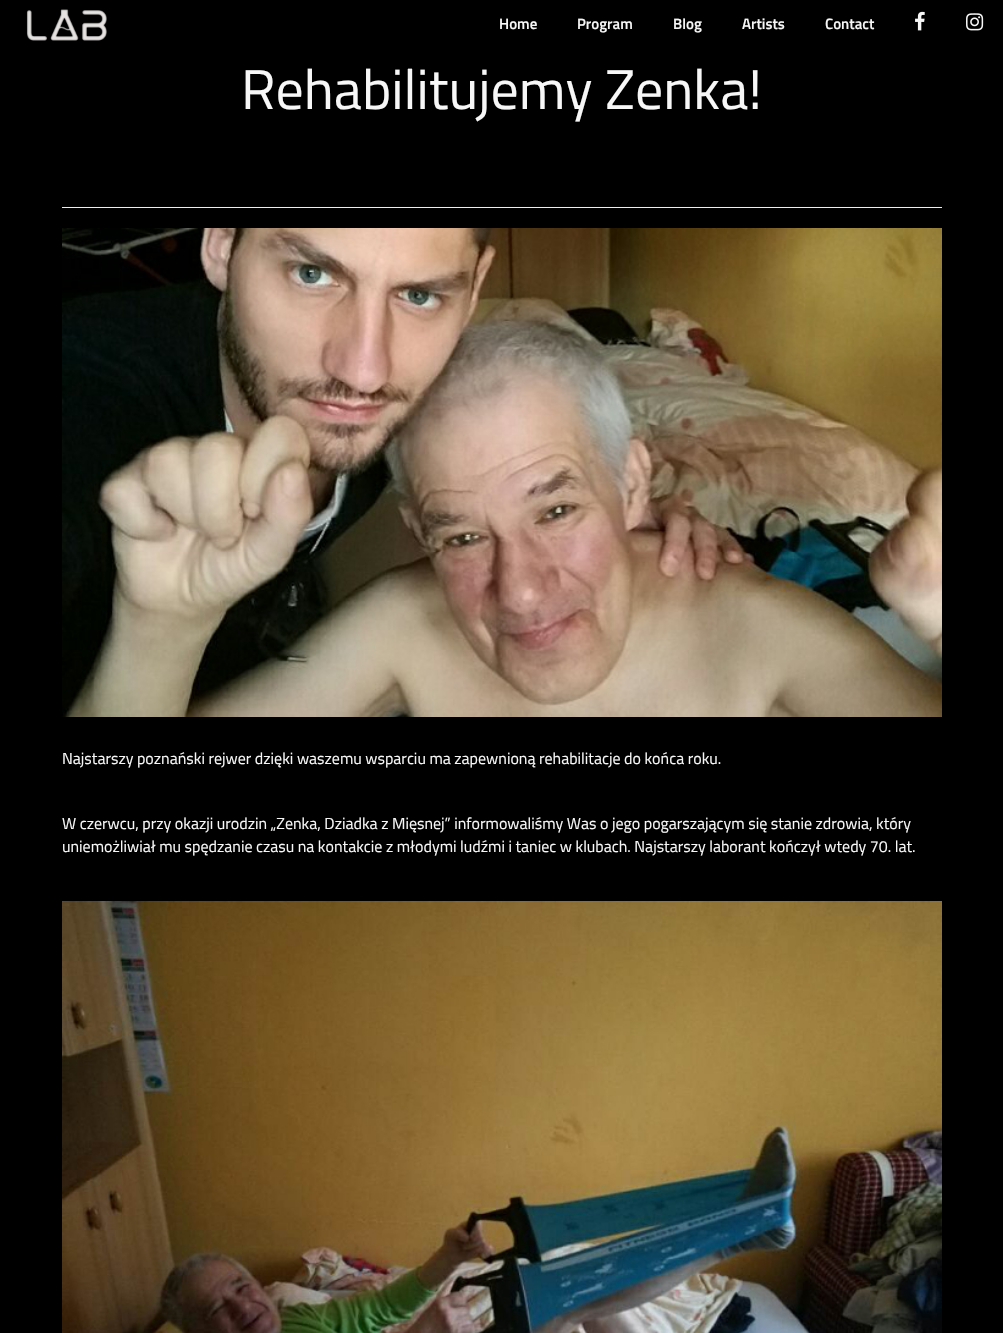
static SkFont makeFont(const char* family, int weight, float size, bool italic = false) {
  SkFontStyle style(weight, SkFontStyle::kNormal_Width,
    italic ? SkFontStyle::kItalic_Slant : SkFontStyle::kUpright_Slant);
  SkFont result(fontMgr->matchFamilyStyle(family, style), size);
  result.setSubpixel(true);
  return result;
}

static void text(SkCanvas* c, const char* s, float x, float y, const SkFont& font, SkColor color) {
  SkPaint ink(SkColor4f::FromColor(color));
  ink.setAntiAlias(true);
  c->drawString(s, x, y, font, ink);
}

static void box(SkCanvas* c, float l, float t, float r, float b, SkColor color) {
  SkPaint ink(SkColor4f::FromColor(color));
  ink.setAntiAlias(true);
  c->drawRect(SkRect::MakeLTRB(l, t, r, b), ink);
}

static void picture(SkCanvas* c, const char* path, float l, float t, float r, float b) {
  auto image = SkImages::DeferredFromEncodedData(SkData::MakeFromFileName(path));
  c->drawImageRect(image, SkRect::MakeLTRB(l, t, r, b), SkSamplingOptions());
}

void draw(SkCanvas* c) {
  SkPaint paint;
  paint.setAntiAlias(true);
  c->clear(0xff000000);
  picture(c, "img_01.png", 26, 9, 107, 41);
  SkFont face1 = makeFont("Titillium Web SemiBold", 600, 15);
  text(c, "Home", 499, 29, face1, 0xfff7f7f7);
  text(c, "Program", 577, 29, face1, 0xfff7f7f7);
  text(c, "Blog", 673, 29, face1, 0xfff7f7f7);
  text(c, "Artists", 742, 29, face1, 0xfff7f7f7);
  text(c, "Contact", 825, 29, face1, 0xfff7f7f7);
  picture(c, "img_02.png", 915, 11, 925, 31);
  picture(c, "img_03.png", 966, 13, 984, 31);
  SkFont face2 = makeFont("Titillium Web", 400, 56);
  text(c, "Rehabilitujemy Zenka!", 241, 109, face2, 0xfff7f7f7);
  box(c, 62, 207, 942, 208, 0xffeeeeee);
  picture(c, "img_04.png", 62, 228, 942, 717);
  SkFont face3 = makeFont("Titillium Web", 400, 16);
  text(c, "Najstarszy poznański rejwer dzięki waszemu wsparciu ma zapewnioną rehabilitacje do końca roku.", 62, 764, face3, 0xfff7f7f7);
  text(c, "W czerwcu, przy okazji urodzin „Zenka, Dziadka z Mięsnej” informowaliśmy Was o jego pogarszającym się stanie zdrowia, który", 62, 829, face3, 0xfff7f7f7);
  text(c, "uniemożliwiał mu spędzanie czasu na kontakcie z młodymi ludźmi i taniec w klubach. Najstarszy laborant kończył wtedy 70. lat.", 62, 852, face3, 0xfff7f7f7);
  picture(c, "img_05.png", 62, 901, 942, 1333);
}
